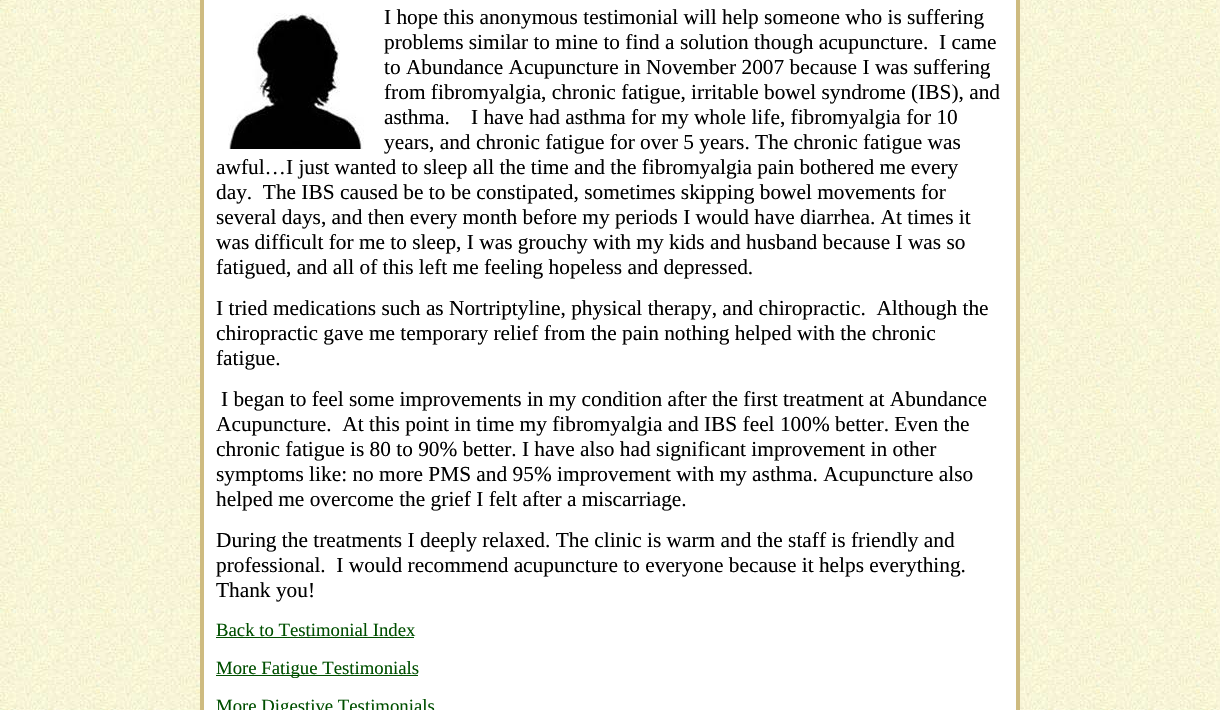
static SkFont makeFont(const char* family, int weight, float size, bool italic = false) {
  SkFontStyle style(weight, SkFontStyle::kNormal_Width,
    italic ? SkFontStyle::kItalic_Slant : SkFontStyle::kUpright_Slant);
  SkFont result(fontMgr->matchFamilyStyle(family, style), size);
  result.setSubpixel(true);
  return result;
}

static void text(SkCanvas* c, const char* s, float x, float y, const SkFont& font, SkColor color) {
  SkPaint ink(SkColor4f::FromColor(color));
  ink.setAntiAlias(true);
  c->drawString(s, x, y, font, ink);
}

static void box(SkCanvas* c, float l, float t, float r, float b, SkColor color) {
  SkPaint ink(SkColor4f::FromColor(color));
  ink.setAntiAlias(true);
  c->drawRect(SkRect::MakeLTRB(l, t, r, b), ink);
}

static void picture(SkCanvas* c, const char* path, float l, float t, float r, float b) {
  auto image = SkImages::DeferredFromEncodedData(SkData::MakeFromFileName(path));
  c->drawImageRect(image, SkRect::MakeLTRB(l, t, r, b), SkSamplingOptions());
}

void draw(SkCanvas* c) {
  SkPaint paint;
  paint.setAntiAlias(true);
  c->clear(0xffffffff);
  picture(c, "img_01.png", 0, 0, 1220, 710);
  box(c, 204, 0, 1016, 710, 0xffffffff);
  box(c, 1016, 0, 1020, 710, 0xffcebb80);
  box(c, 200, 0, 204, 710, 0xffcebb80);
  picture(c, "img_02.png", 228, 13, 364, 149);
  SkFont face1 = makeFont("Liberation Serif", 400, 21.35f);
  text(c, "I hope this anonymous testimonial will help someone who is suffering", 384, 24, face1, 0xff000000);
  text(c, "problems similar to mine to find a solution though acupuncture.  I came", 384, 49, face1, 0xff000000);
  text(c, "to Abundance Acupuncture in November 2007 because I was suffering", 384, 74, face1, 0xff000000);
  text(c, "from fibromyalgia, chronic fatigue, irritable bowel syndrome (IBS), and", 384, 99, face1, 0xff000000);
  text(c, "asthma.", 384, 124, face1, 0xff000000);
  text(c, "I have had asthma for my whole life, fibromyalgia for 10", 471, 124, face1, 0xff000000);
  text(c, "years, and chronic fatigue for over 5 years. The chronic fatigue was", 384, 149, face1, 0xff000000);
  text(c, "awful…I just wanted to sleep all the time and the fibromyalgia pain bothered me every", 216, 174, face1, 0xff000000);
  text(c, "day.  The IBS caused be to be constipated, sometimes skipping bowel movements for", 216, 199, face1, 0xff000000);
  text(c, "several days, and then every month before my periods I would have diarrhea. At times it", 216, 224, face1, 0xff000000);
  text(c, "was difficult for me to sleep, I was grouchy with my kids and husband because I was so", 216, 249, face1, 0xff000000);
  text(c, "fatigued, and all of this left me feeling hopeless and depressed.", 216, 274, face1, 0xff000000);
  text(c, "I tried medications such as Nortriptyline, physical therapy, and chiropractic.  Although the", 216, 315, face1, 0xff000000);
  text(c, "chiropractic gave me temporary relief from the pain nothing helped with the chronic", 216, 340, face1, 0xff000000);
  text(c, "fatigue.", 216, 365, face1, 0xff000000);
  text(c, "I began to feel some improvements in my condition after the first treatment at Abundance", 221, 406, face1, 0xff000000);
  text(c, "Acupuncture.  At this point in time my fibromyalgia and IBS feel 100% better. Even the", 216, 431, face1, 0xff000000);
  text(c, "chronic fatigue is 80 to 90% better. I have also had significant improvement in other", 216, 456, face1, 0xff000000);
  text(c, "symptoms like: no more PMS and 95% improvement with my asthma. Acupuncture also", 216, 481, face1, 0xff000000);
  text(c, "helped me overcome the grief I felt after a miscarriage.", 216, 506, face1, 0xff000000);
  text(c, "During the treatments I deeply relaxed. The clinic is warm and the staff is friendly and", 216, 547, face1, 0xff000000);
  text(c, "professional.  I would recommend acupuncture to everyone because it helps everything.", 216, 572, face1, 0xff000000);
  text(c, "Thank you!", 216, 597, face1, 0xff000000);
  SkFont face2 = makeFont("Liberation Serif", 400, 18.75f);
  text(c, "Back to Testimonial Index", 216, 636, face2, 0xff004f00);
  box(c, 216, 637, 414, 638, 0xff004f00);
  box(c, 216, 675, 418, 676, 0xff004f00);
  text(c, "More Fatigue Testimonials", 216, 674, face2, 0xff004f00);
  text(c, "More Digestive Testimonials", 216, 712, face2, 0xff004f00);
}
